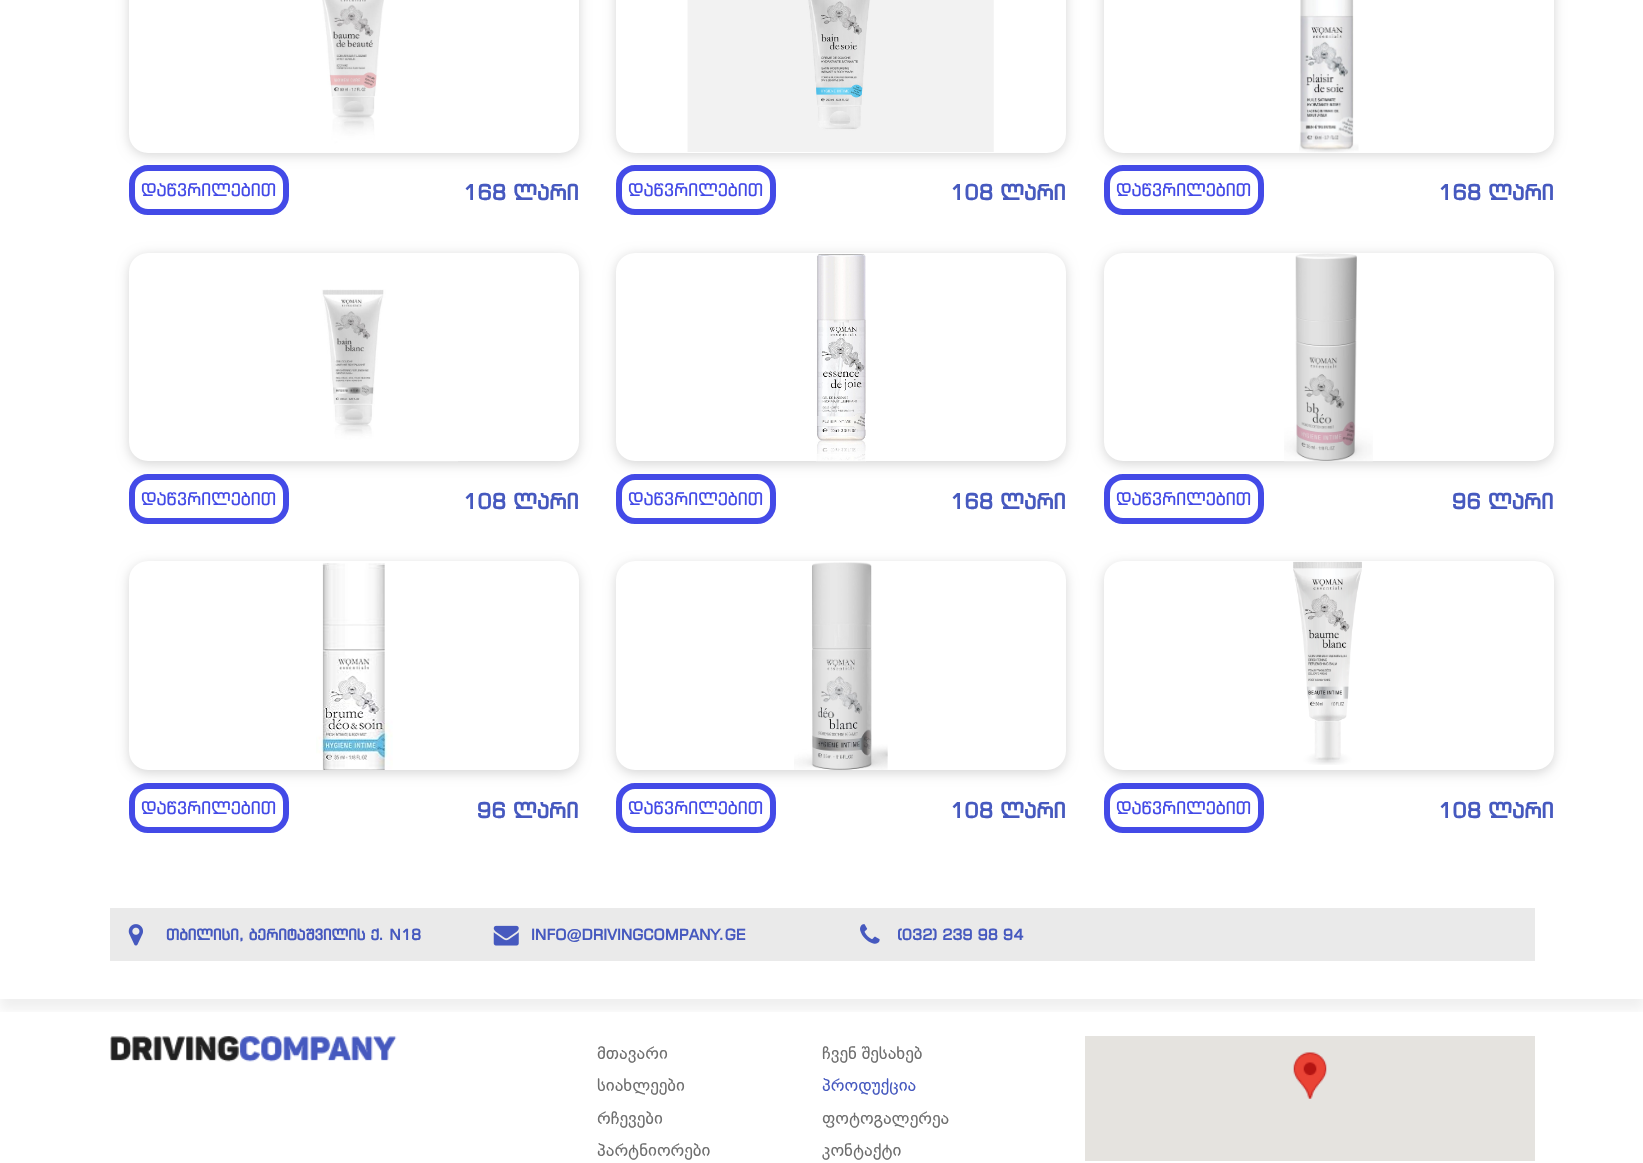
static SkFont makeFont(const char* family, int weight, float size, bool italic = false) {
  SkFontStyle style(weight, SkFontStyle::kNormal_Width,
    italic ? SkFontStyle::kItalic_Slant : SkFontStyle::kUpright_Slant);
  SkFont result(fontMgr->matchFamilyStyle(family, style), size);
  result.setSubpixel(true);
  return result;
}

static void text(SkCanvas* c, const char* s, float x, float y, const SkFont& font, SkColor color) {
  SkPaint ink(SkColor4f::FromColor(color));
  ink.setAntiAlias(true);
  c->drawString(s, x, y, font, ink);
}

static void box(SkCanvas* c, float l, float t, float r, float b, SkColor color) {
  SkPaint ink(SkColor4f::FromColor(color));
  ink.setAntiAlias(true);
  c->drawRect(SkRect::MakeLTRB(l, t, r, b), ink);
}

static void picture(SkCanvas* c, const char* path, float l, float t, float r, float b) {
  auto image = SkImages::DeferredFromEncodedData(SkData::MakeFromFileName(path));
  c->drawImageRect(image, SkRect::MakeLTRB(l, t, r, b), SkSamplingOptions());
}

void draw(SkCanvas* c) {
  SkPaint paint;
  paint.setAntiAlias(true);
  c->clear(0xffffffff);
  c->save();
  c->clipRect(SkRect::MakeLTRB(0, 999, 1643, 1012));
  paint.setColor(0x0f000000);
  paint.setMaskFilter(SkMaskFilter::MakeBlur(kNormal_SkBlurStyle, 5.5f));
  c->drawRect(SkRect::MakeLTRB(0, -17, 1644, 1010), paint);
  paint.setMaskFilter(nullptr);
  c->restore();
  paint.setStyle(SkPaint::kStroke_Style);
  paint.setStrokeWidth(6);
  paint.setColor(0xff434ae7);
  c->drawRoundRect(SkRect::MakeLTRB(132, 168, 286, 212), 16, 16, paint);
  c->save();
  c->clipPath(SkPathBuilder(SkPathFillType::kEvenOdd).moveTo(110, 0).lineTo(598, 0).lineTo(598, 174).lineTo(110, 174).close().moveTo(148, -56).lineTo(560, -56).cubicTo(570.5f, -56, 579, -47.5f, 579, -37).lineTo(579, 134).cubicTo(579, 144.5f, 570.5f, 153, 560, 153).lineTo(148, 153).cubicTo(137.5f, 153, 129, 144.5f, 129, 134).lineTo(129, -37).cubicTo(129, -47.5f, 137.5f, -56, 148, -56).close().detach(), true);
  paint.setStyle(SkPaint::kFill_Style);
  paint.setColor(0x29000000);
  paint.setMaskFilter(SkMaskFilter::MakeBlur(kNormal_SkBlurStyle, 6));
  c->drawRoundRect(SkRect::MakeLTRB(129, -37, 579, 155), 19, 19, paint);
  paint.setMaskFilter(nullptr);
  c->restore();
  picture(c, "img_01.png", 250, 0, 458, 153);
  SkFont face1 = makeFont("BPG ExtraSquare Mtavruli", 400, 17.5f);
  text(c, "დაწვრილებით", 141, 196, face1, 0xff434ae7);
  SkFont face2 = makeFont("BPG ExtraSquare Mtavruli", 700, 21.25f);
  text(c, "168 ლარი", 463, 200, face2, 0xff4659bf);
  paint.setStyle(SkPaint::kStroke_Style);
  paint.setColor(0xff434ae7);
  c->drawRoundRect(SkRect::MakeLTRB(619, 168, 773, 212), 16, 16, paint);
  c->save();
  c->clipPath(SkPathBuilder(SkPathFillType::kEvenOdd).moveTo(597, 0).lineTo(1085, 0).lineTo(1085, 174).lineTo(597, 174).close().moveTo(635, -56).lineTo(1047, -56).cubicTo(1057.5f, -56, 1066, -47.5f, 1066, -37).lineTo(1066, 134).cubicTo(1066, 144.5f, 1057.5f, 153, 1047, 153).lineTo(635, 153).cubicTo(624.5f, 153, 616, 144.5f, 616, 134).lineTo(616, -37).cubicTo(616, -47.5f, 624.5f, -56, 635, -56).close().detach(), true);
  paint.setStyle(SkPaint::kFill_Style);
  paint.setColor(0x29000000);
  paint.setMaskFilter(SkMaskFilter::MakeBlur(kNormal_SkBlurStyle, 6));
  c->drawRoundRect(SkRect::MakeLTRB(616, -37, 1066, 155), 19, 19, paint);
  paint.setMaskFilter(nullptr);
  c->restore();
  picture(c, "img_02.png", 687, 0, 994, 152);
  text(c, "დაწვრილებით", 628, 196, face1, 0xff434ae7);
  text(c, "108 ლარი", 950, 200, face2, 0xff4659bf);
  paint.setStyle(SkPaint::kStroke_Style);
  paint.setColor(0xff434ae7);
  c->drawRoundRect(SkRect::MakeLTRB(1107, 168, 1261, 212), 16, 16, paint);
  c->save();
  c->clipPath(SkPathBuilder(SkPathFillType::kEvenOdd).moveTo(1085, 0).lineTo(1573, 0).lineTo(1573, 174).lineTo(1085, 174).close().moveTo(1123, -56).lineTo(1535, -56).cubicTo(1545.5f, -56, 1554, -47.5f, 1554, -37).lineTo(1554, 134).cubicTo(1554, 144.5f, 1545.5f, 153, 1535, 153).lineTo(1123, 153).cubicTo(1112.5f, 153, 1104, 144.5f, 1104, 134).lineTo(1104, -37).cubicTo(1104, -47.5f, 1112.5f, -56, 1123, -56).close().detach(), true);
  paint.setStyle(SkPaint::kFill_Style);
  paint.setColor(0x29000000);
  paint.setMaskFilter(SkMaskFilter::MakeBlur(kNormal_SkBlurStyle, 6));
  c->drawRoundRect(SkRect::MakeLTRB(1104, -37, 1554, 155), 19, 19, paint);
  paint.setMaskFilter(nullptr);
  c->restore();
  picture(c, "img_03.png", 1299, 0, 1359, 153);
  text(c, "დაწვრილებით", 1116, 196, face1, 0xff434ae7);
  text(c, "168 ლარი", 1438, 200, face2, 0xff4659bf);
  paint.setStyle(SkPaint::kStroke_Style);
  paint.setColor(0xff434ae7);
  c->drawRoundRect(SkRect::MakeLTRB(132, 477, 286, 521), 16, 16, paint);
  c->save();
  c->clipPath(SkPathBuilder(SkPathFillType::kEvenOdd).moveTo(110, 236).lineTo(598, 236).lineTo(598, 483).lineTo(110, 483).close().moveTo(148, 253).lineTo(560, 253).cubicTo(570.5f, 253, 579, 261.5f, 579, 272).lineTo(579, 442).cubicTo(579, 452.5f, 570.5f, 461, 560, 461).lineTo(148, 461).cubicTo(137.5f, 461, 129, 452.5f, 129, 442).lineTo(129, 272).cubicTo(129, 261.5f, 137.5f, 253, 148, 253).close().detach(), true);
  paint.setStyle(SkPaint::kFill_Style);
  paint.setColor(0x29000000);
  paint.setMaskFilter(SkMaskFilter::MakeBlur(kNormal_SkBlurStyle, 6));
  c->drawRoundRect(SkRect::MakeLTRB(129, 255, 579, 464), 19, 19, paint);
  paint.setMaskFilter(nullptr);
  c->restore();
  picture(c, "img_04.png", 250, 289, 458, 462);
  text(c, "დაწვრილებით", 141, 505, face1, 0xff434ae7);
  text(c, "108 ლარი", 463, 509, face2, 0xff4659bf);
  paint.setStyle(SkPaint::kStroke_Style);
  paint.setColor(0xff434ae7);
  c->drawRoundRect(SkRect::MakeLTRB(619, 477, 773, 521), 16, 16, paint);
  c->save();
  c->clipPath(SkPathBuilder(SkPathFillType::kEvenOdd).moveTo(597, 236).lineTo(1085, 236).lineTo(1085, 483).lineTo(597, 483).close().moveTo(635, 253).lineTo(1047, 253).cubicTo(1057.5f, 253, 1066, 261.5f, 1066, 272).lineTo(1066, 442).cubicTo(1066, 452.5f, 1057.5f, 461, 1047, 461).lineTo(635, 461).cubicTo(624.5f, 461, 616, 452.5f, 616, 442).lineTo(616, 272).cubicTo(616, 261.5f, 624.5f, 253, 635, 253).close().detach(), true);
  paint.setStyle(SkPaint::kFill_Style);
  paint.setColor(0x29000000);
  paint.setMaskFilter(SkMaskFilter::MakeBlur(kNormal_SkBlurStyle, 6));
  c->drawRoundRect(SkRect::MakeLTRB(616, 255, 1066, 464), 19, 19, paint);
  paint.setMaskFilter(nullptr);
  c->restore();
  picture(c, "img_05.png", 816, 254, 866, 462);
  text(c, "დაწვრილებით", 628, 505, face1, 0xff434ae7);
  text(c, "168 ლარი", 950, 509, face2, 0xff4659bf);
  paint.setStyle(SkPaint::kStroke_Style);
  paint.setColor(0xff434ae7);
  c->drawRoundRect(SkRect::MakeLTRB(1107, 477, 1261, 521), 16, 16, paint);
  c->save();
  c->clipPath(SkPathBuilder(SkPathFillType::kEvenOdd).moveTo(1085, 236).lineTo(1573, 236).lineTo(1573, 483).lineTo(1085, 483).close().moveTo(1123, 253).lineTo(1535, 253).cubicTo(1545.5f, 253, 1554, 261.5f, 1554, 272).lineTo(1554, 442).cubicTo(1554, 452.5f, 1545.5f, 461, 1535, 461).lineTo(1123, 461).cubicTo(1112.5f, 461, 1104, 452.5f, 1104, 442).lineTo(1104, 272).cubicTo(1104, 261.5f, 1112.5f, 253, 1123, 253).close().detach(), true);
  paint.setStyle(SkPaint::kFill_Style);
  paint.setColor(0x29000000);
  paint.setMaskFilter(SkMaskFilter::MakeBlur(kNormal_SkBlurStyle, 6));
  c->drawRoundRect(SkRect::MakeLTRB(1104, 255, 1554, 464), 19, 19, paint);
  paint.setMaskFilter(nullptr);
  c->restore();
  picture(c, "img_06.png", 1284, 253, 1373, 462);
  text(c, "დაწვრილებით", 1116, 505, face1, 0xff434ae7);
  text(c, "96 ლარი", 1452, 509, face2, 0xff4659bf);
  paint.setStyle(SkPaint::kStroke_Style);
  paint.setColor(0xff434ae7);
  c->drawRoundRect(SkRect::MakeLTRB(132, 786, 286, 830), 16, 16, paint);
  c->save();
  c->clipPath(SkPathBuilder(SkPathFillType::kEvenOdd).moveTo(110, 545).lineTo(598, 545).lineTo(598, 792).lineTo(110, 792).close().moveTo(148, 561).lineTo(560, 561).cubicTo(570.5f, 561, 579, 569.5f, 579, 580).lineTo(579, 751).cubicTo(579, 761.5f, 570.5f, 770, 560, 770).lineTo(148, 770).cubicTo(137.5f, 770, 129, 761.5f, 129, 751).lineTo(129, 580).cubicTo(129, 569.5f, 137.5f, 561, 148, 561).close().detach(), true);
  paint.setStyle(SkPaint::kFill_Style);
  paint.setColor(0x29000000);
  paint.setMaskFilter(SkMaskFilter::MakeBlur(kNormal_SkBlurStyle, 6));
  c->drawRoundRect(SkRect::MakeLTRB(129, 564, 579, 773), 19, 19, paint);
  paint.setMaskFilter(nullptr);
  c->restore();
  picture(c, "img_07.png", 316, 563, 393, 770);
  text(c, "დაწვრილებით", 141, 814, face1, 0xff434ae7);
  text(c, "96 ლარი", 477, 818, face2, 0xff4659bf);
  paint.setStyle(SkPaint::kStroke_Style);
  paint.setColor(0xff434ae7);
  c->drawRoundRect(SkRect::MakeLTRB(619, 786, 773, 830), 16, 16, paint);
  c->save();
  c->clipPath(SkPathBuilder(SkPathFillType::kEvenOdd).moveTo(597, 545).lineTo(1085, 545).lineTo(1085, 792).lineTo(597, 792).close().moveTo(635, 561).lineTo(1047, 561).cubicTo(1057.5f, 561, 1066, 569.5f, 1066, 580).lineTo(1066, 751).cubicTo(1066, 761.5f, 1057.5f, 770, 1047, 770).lineTo(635, 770).cubicTo(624.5f, 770, 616, 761.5f, 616, 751).lineTo(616, 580).cubicTo(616, 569.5f, 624.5f, 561, 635, 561).close().detach(), true);
  paint.setStyle(SkPaint::kFill_Style);
  paint.setColor(0x29000000);
  paint.setMaskFilter(SkMaskFilter::MakeBlur(kNormal_SkBlurStyle, 6));
  c->drawRoundRect(SkRect::MakeLTRB(616, 564, 1066, 773), 19, 19, paint);
  paint.setMaskFilter(nullptr);
  c->restore();
  picture(c, "img_08.png", 794, 562, 888, 770);
  text(c, "დაწვრილებით", 628, 814, face1, 0xff434ae7);
  text(c, "108 ლარი", 950, 818, face2, 0xff4659bf);
  paint.setStyle(SkPaint::kStroke_Style);
  paint.setColor(0xff434ae7);
  c->drawRoundRect(SkRect::MakeLTRB(1107, 786, 1261, 830), 16, 16, paint);
  c->save();
  c->clipPath(SkPathBuilder(SkPathFillType::kEvenOdd).moveTo(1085, 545).lineTo(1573, 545).lineTo(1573, 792).lineTo(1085, 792).close().moveTo(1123, 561).lineTo(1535, 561).cubicTo(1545.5f, 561, 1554, 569.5f, 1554, 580).lineTo(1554, 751).cubicTo(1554, 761.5f, 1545.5f, 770, 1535, 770).lineTo(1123, 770).cubicTo(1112.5f, 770, 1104, 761.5f, 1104, 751).lineTo(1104, 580).cubicTo(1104, 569.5f, 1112.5f, 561, 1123, 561).close().detach(), true);
  paint.setStyle(SkPaint::kFill_Style);
  paint.setColor(0x29000000);
  paint.setMaskFilter(SkMaskFilter::MakeBlur(kNormal_SkBlurStyle, 6));
  c->drawRoundRect(SkRect::MakeLTRB(1104, 564, 1554, 773), 19, 19, paint);
  paint.setMaskFilter(nullptr);
  c->restore();
  picture(c, "img_09.png", 1293, 561, 1362, 765);
  text(c, "დაწვრილებით", 1116, 814, face1, 0xff434ae7);
  text(c, "108 ლარი", 1438, 818, face2, 0xff4659bf);
  box(c, 110, 908, 1535, 961, 0xffeaeaea);
  picture(c, "img_10.png", 128, 924, 143, 946);
  SkFont face3 = makeFont("BPG ExtraSquare Mtavruli", 700, 15);
  text(c, "თბილისი, ბერიტაშვილის ქ. N18", 166, 940, face3, 0xff4659bf);
  picture(c, "img_11.png", 493, 925, 519, 946);
  text(c, "INFO@DRIVINGCOMPANY.GE", 531, 940, face3, 0xff4659bf);
  picture(c, "img_12.png", 860, 924, 880, 944);
  text(c, "(032) 239 98 94", 897, 940, face3, 0xff4659bf);
  picture(c, "img_13.png", 110, 1036, 397, 1062);
  SkFont face4 = makeFont("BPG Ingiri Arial", 400, 17.5f);
  text(c, "მთავარი", 597, 1059, face4, 0xff6e6e6e);
  text(c, "ჩვენ შესახებ", 822, 1059, face4, 0xff6e6e6e);
  text(c, "სიახლეები", 597, 1091, face4, 0xff6e6e6e);
  text(c, "პროდუქცია", 822, 1091, face4, 0xff4659bf);
  text(c, "რჩევები", 597, 1124, face4, 0xff6e6e6e);
  text(c, "ფოტოგალერეა", 822, 1124, face4, 0xff6e6e6e);
  text(c, "პარტნიორები", 597, 1156, face4, 0xff6e6e6e);
  text(c, "კონტაქტი", 822, 1156, face4, 0xff6e6e6e);
  box(c, 1085, 1036, 1535, 1161, 0xffe5e3df);
  picture(c, "img_14.png", 1293, 1052, 1327, 1099);
}
